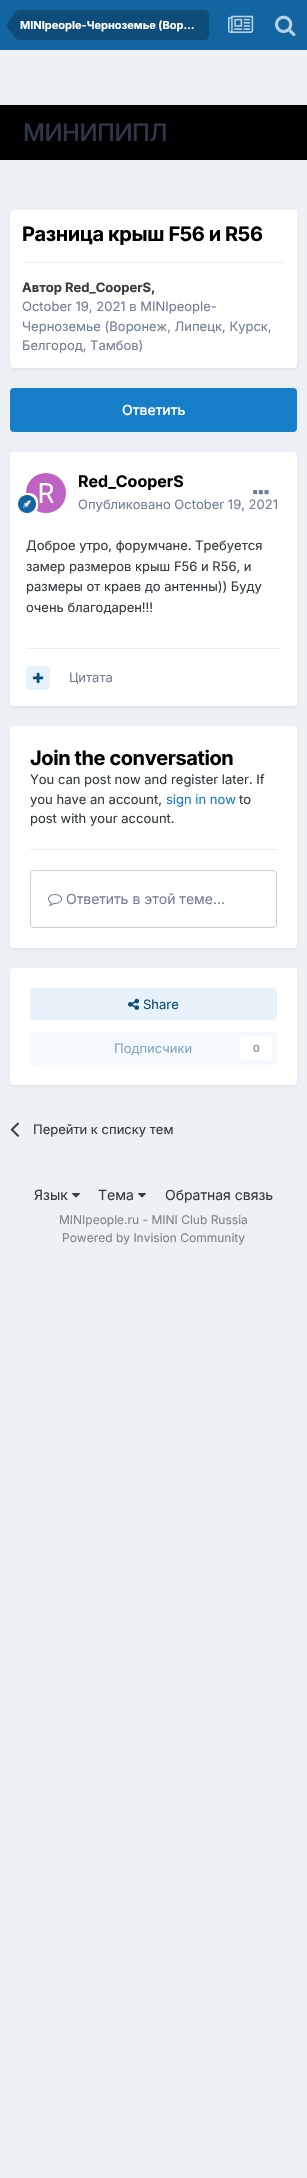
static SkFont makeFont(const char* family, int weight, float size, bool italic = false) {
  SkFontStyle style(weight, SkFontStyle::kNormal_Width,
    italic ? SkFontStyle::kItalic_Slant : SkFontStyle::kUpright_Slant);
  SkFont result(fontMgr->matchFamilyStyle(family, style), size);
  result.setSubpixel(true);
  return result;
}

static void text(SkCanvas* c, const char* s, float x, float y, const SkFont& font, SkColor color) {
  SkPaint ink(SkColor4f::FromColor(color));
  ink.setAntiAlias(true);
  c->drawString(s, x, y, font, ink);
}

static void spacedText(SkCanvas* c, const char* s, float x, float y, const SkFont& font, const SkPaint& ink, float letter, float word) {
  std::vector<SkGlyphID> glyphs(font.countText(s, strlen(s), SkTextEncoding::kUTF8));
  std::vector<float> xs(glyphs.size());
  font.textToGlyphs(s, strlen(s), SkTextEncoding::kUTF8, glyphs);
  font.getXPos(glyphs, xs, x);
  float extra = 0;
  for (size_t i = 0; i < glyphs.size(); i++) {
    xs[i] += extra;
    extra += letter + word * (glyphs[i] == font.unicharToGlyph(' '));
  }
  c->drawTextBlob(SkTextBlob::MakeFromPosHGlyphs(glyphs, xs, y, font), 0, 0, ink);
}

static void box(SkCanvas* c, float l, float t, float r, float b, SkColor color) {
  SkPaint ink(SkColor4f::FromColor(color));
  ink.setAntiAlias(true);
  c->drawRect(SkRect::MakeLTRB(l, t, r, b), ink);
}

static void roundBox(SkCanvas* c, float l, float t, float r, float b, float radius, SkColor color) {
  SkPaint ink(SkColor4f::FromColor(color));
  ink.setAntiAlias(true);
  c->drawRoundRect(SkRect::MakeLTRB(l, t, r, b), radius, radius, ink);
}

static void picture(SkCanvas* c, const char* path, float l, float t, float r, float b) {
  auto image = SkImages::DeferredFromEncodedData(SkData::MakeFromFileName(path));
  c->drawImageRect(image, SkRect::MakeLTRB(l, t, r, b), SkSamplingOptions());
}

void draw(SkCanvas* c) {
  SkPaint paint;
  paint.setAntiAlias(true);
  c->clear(0xffedf0f4);
  box(c, 0, 0, 307, 50, 0xff1265a1);
  paint.setColor(0xff0e4c79);
  c->drawPath(SkPathBuilder().moveTo(20, 10).lineTo(204, 10).cubicTo(207, 10, 209, 12, 209, 15).lineTo(209, 35).cubicTo(209, 38, 207, 40, 204, 40).lineTo(20, 40).close().detach(), paint);
  c->drawPath(SkPathBuilder().moveTo(20, 25).lineTo(20, 40).cubicTo(15.5f, 40, 13.5f, 35.5f, 11, 32).cubicTo(9.5f, 30, 7, 28, 7, 25).close().moveTo(20, 25).lineTo(7, 25).cubicTo(7, 22, 9.5f, 20, 11, 18).cubicTo(13.5f, 14.5f, 15.5f, 10, 20, 10).close().detach(), paint);
  SkFont face1 = makeFont("Inter", 700, 11);
  text(c, "MINIpeople-Черноземье (Вор…", 20, 29, face1, 0xffffffff);
  picture(c, "img_01.png", 228, 15, 254, 33);
  picture(c, "img_02.png", 275, 15, 296, 37);
  box(c, 0, 105, 307, 160, 0xff000000);
  SkFont face2 = makeFont("Inter", 500, 24);
  paint.setColor(0xff2d3748);
  spacedText(c, "МИНИПИПЛ", 23, 141, face2, paint, -0.5f, 0);
  paint.setColor(0x1a2d3748);
  paint.setMaskFilter(SkMaskFilter::MakeBlur(kNormal_SkBlurStyle, 2));
  c->drawRoundRect(SkRect::MakeLTRB(11, 213, 296, 369), 3, 3, paint);
  paint.setMaskFilter(nullptr);
  roundBox(c, 10, 210, 297, 368, 4, 0xffffffff);
  SkFont face3 = makeFont("Inter", 700, 20);
  paint.setColor(0xff000000);
  spacedText(c, "Разница крыш F56 и R56", 22, 241, face3, paint, -0.4f, 0);
  box(c, 22, 262, 285, 263, 0xffefeff0);
  SkFont face4 = makeFont("Inter", 700, 13);
  text(c, "Автор Red_CooperS,", 22, 292, face4, 0xff353c41);
  SkFont face5 = makeFont("Inter", 400, 13);
  text(c, "October 19, 2021 в MINIpeople-", 22, 311, face5, 0xff718096);
  text(c, "Черноземье (Воронеж, Липецк, Курск,", 22, 331, face5, 0xff718096);
  text(c, "Белгород, Тамбов)", 22, 350, face5, 0xff718096);
  roundBox(c, 10, 388, 297, 432, 4, 0xff177ec9);
  SkFont face6 = makeFont("Inter", 500, 14);
  text(c, "Ответить", 122, 415, face6, 0xffffffff);
  paint.setColor(0x1a2d3748);
  paint.setMaskFilter(SkMaskFilter::MakeBlur(kNormal_SkBlurStyle, 2));
  c->drawRoundRect(SkRect::MakeLTRB(11, 455, 296, 707), 3, 3, paint);
  paint.setMaskFilter(nullptr);
  roundBox(c, 10, 452, 297, 706, 4, 0xffffffff);
  picture(c, "img_03.png", 26, 473, 66, 513);
  picture(c, "img_04.png", 18, 493, 38, 513);
  c->save();
  c->clipRect(SkRect::MakeLTRB(78, 472, 184, 490));
  SkFont face7 = makeFont("Inter", 700, 16);
  text(c, "Red_CooperS", 78, 487, face7, 0xff000000);
  c->restore();
  text(c, "Опубликовано October 19, 2021", 78, 509, face5, 0xff718096);
  picture(c, "img_05.png", 253, 490, 269, 495);
  text(c, "Доброе утро, форумчане. Требуется", 26, 550, face5, 0xff353c41);
  text(c, "замер размеров крыш F56 и R56, и", 26, 571, face5, 0xff353c41);
  text(c, "размеры от краев до антенны)) Буду", 26, 591, face5, 0xff353c41);
  text(c, "очень благодарен!!!", 26, 612, face5, 0xff353c41);
  box(c, 26, 648, 281, 649, 0xffebecec);
  roundBox(c, 26, 666, 50, 690, 4, 0xffe8f2fa);
  picture(c, "img_06.png", 33, 672, 44, 683);
  text(c, "Цитата", 69, 682, face5, 0xff718096);
  paint.setMaskFilter(SkMaskFilter::MakeBlur(kNormal_SkBlurStyle, 2));
  c->drawRoundRect(SkRect::MakeLTRB(11, 729, 296, 949), 3, 3, paint);
  paint.setMaskFilter(nullptr);
  roundBox(c, 10, 726, 297, 948, 4, 0xffffffff);
  box(c, 30, 849, 277, 850, 0xffeaecef);
  paint.setColor(0xff000000);
  spacedText(c, "Join the conversation", 30, 765, face3, paint, -0.4f, 0);
  text(c, "You can post now and register later. If", 30, 784, face5, 0xff353c41);
  text(c, "you have an account,", 30, 804, face5, 0xff353c41);
  text(c, "sign in now", 166, 804, face5, 0xff177ec9);
  text(c, "to", 239, 804, face5, 0xff353c41);
  text(c, "post with your account.", 30, 823, face5, 0xff353c41);
  paint.setStyle(SkPaint::kStroke_Style);
  paint.setStrokeWidth(1);
  paint.setColor(0xffc6ccd5);
  c->drawRoundRect(SkRect::MakeLTRB(30.5f, 870.5f, 276.5f, 927.5f), 3.5f, 3.5f, paint);
  picture(c, "img_07.png", 48, 894, 62, 906);
  SkFont face8 = makeFont("Inter", 400, 14);
  text(c, "Ответить в этой теме...", 66, 904, face8, 0xff718096);
  paint.setStyle(SkPaint::kFill_Style);
  paint.setColor(0x1a2d3748);
  paint.setMaskFilter(SkMaskFilter::MakeBlur(kNormal_SkBlurStyle, 2));
  c->drawRoundRect(SkRect::MakeLTRB(11, 971, 296, 1086), 3, 3, paint);
  paint.setMaskFilter(nullptr);
  roundBox(c, 10, 968, 297, 1085, 4, 0xffffffff);
  roundBox(c, 30, 988, 277, 1020, 4, 0xffe8f2fa);
  picture(c, "img_08.png", 128, 998, 140, 1010);
  text(c, "Share", 143, 1009, face5, 0xff0e4c79);
  roundBox(c, 30, 1032, 277, 1065, 4, 0xfff4f9fd);
  text(c, "Подписчики", 114, 1053, face5, 0xff87a6bc);
  roundBox(c, 240, 1036, 272, 1060, 4, 0xffffffff);
  SkFont face9 = makeFont("Inter", 700, 10);
  text(c, "0", 253, 1052, face9, 0xff9a9ea0);
  picture(c, "img_09.png", 10, 1122, 20, 1137);
  text(c, "Перейти к списку тем", 33, 1134, face5, 0xff353c41);
  text(c, "Язык", 34, 1200, face8, 0xff353c41);
  picture(c, "img_10.png", 72, 1193, 80, 1198);
  text(c, "Тема", 98, 1200, face8, 0xff353c41);
  picture(c, "img_10.png", 138, 1193, 146, 1198);
  text(c, "Обратная связь", 165, 1200, face8, 0xff353c41);
  SkFont face10 = makeFont("Inter", 400, 12);
  text(c, "MINIpeople.ru - MINI Club Russia", 59, 1224, face10, 0xff7f8489);
  text(c, "Powered by Invision Community", 62, 1242, face10, 0xff7f8489);
}
